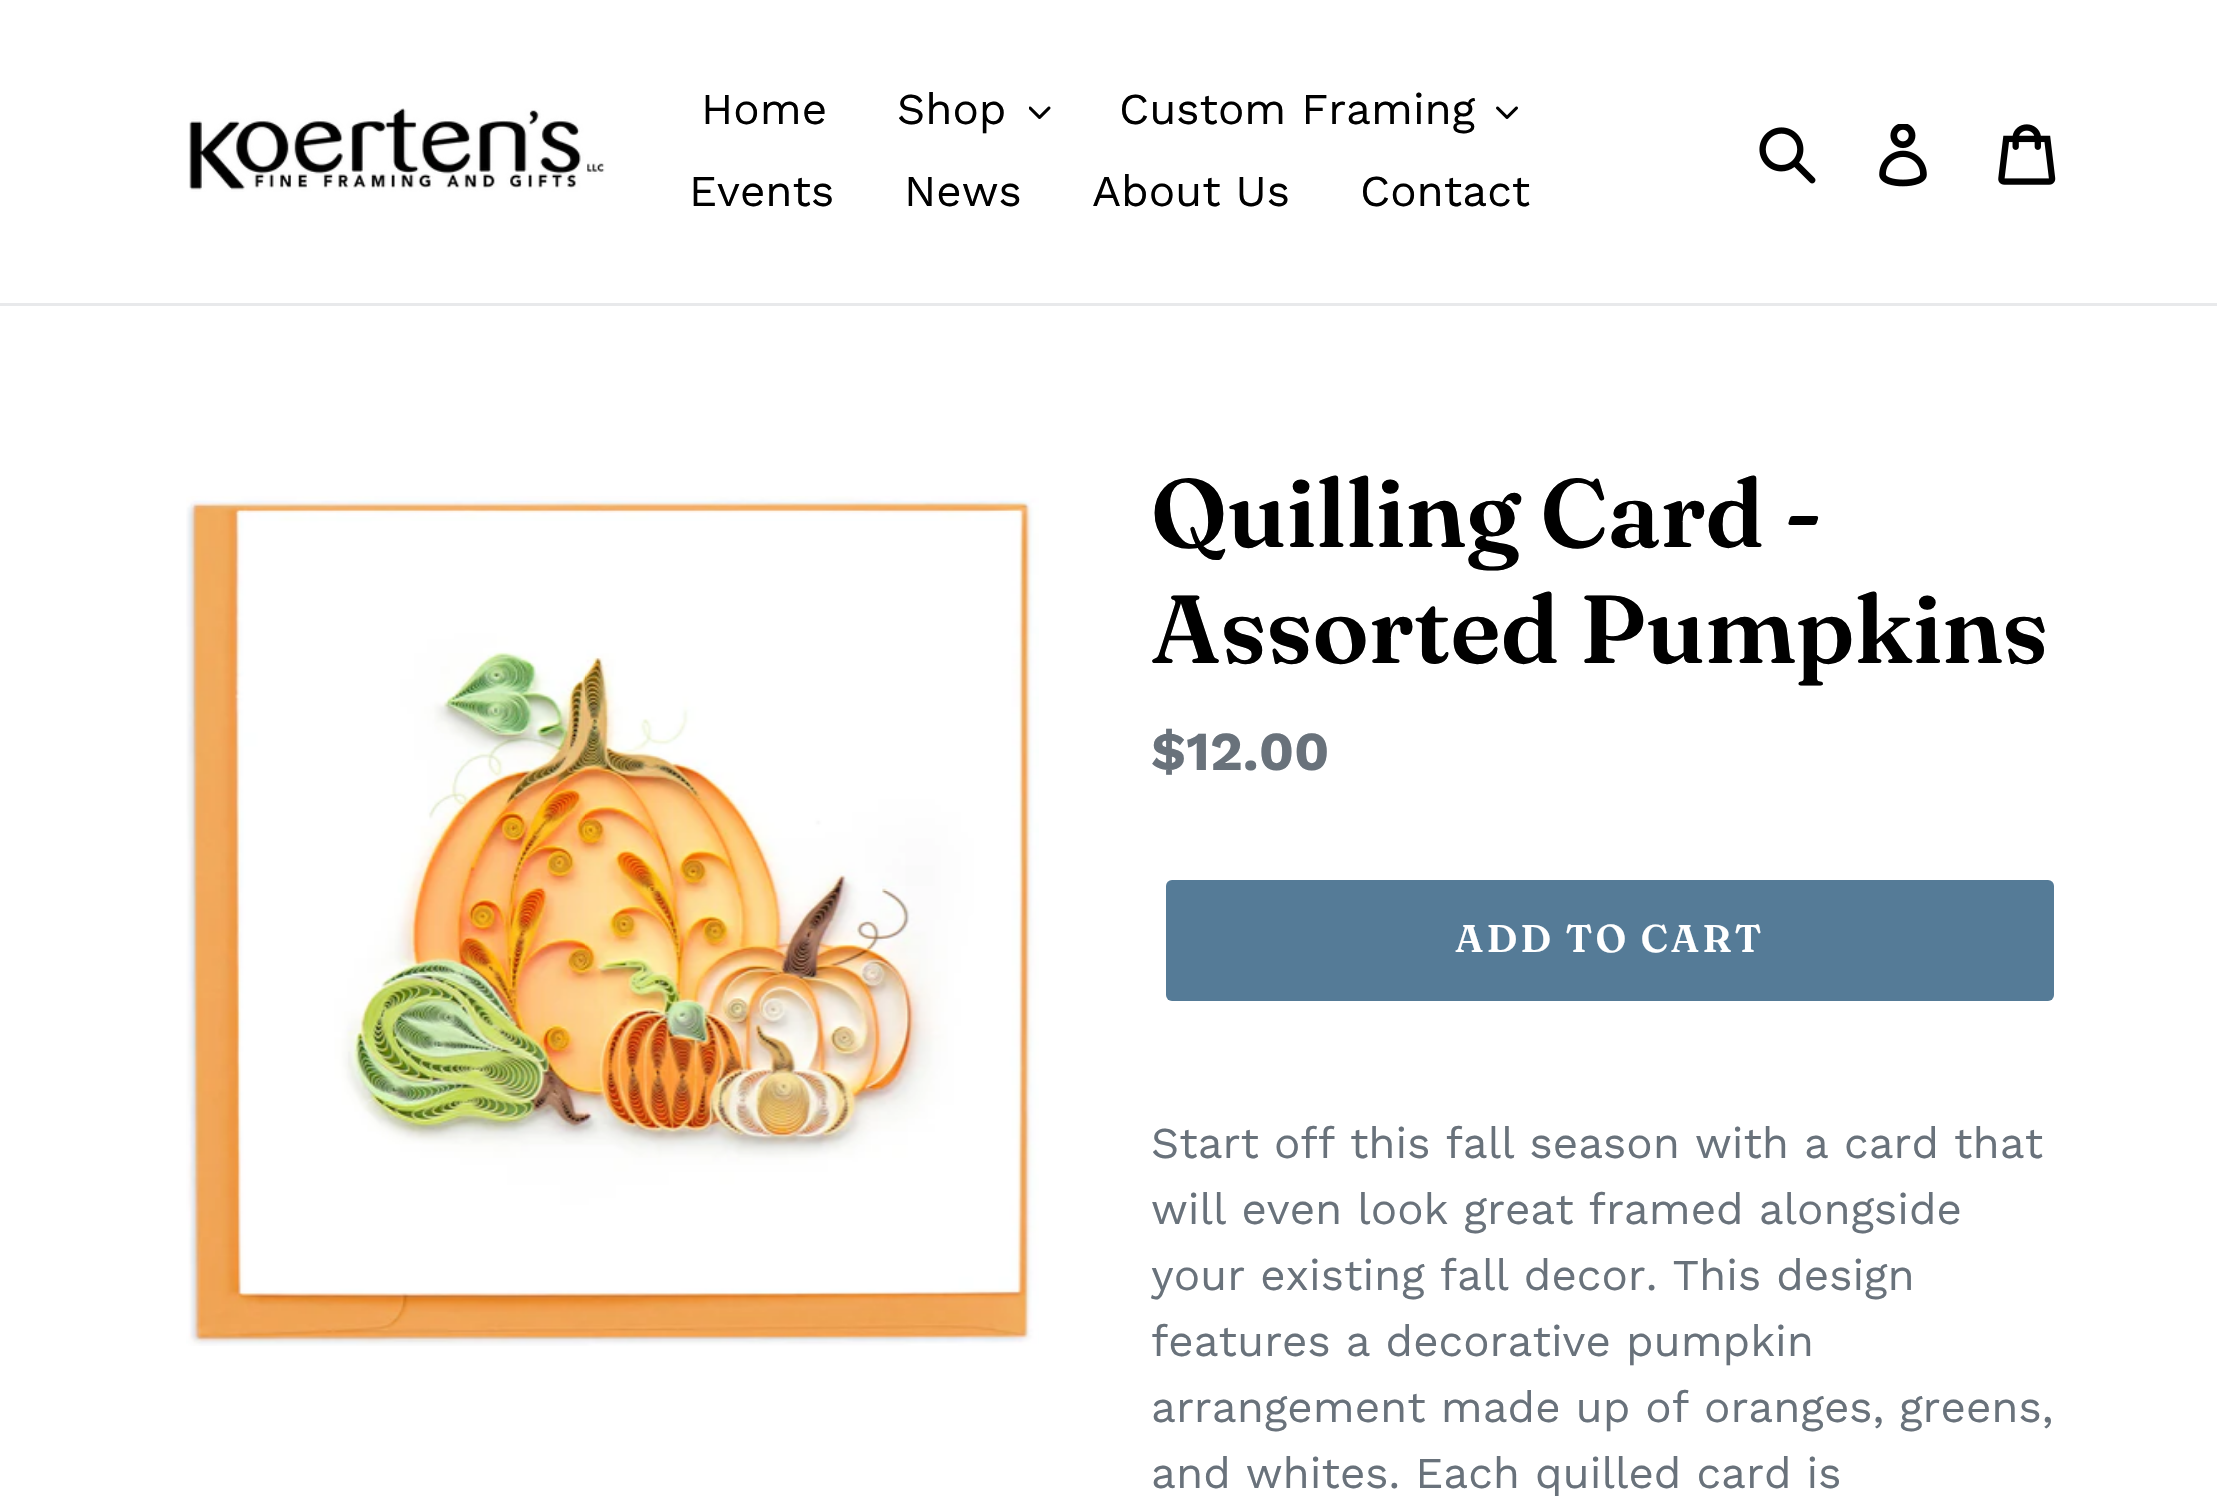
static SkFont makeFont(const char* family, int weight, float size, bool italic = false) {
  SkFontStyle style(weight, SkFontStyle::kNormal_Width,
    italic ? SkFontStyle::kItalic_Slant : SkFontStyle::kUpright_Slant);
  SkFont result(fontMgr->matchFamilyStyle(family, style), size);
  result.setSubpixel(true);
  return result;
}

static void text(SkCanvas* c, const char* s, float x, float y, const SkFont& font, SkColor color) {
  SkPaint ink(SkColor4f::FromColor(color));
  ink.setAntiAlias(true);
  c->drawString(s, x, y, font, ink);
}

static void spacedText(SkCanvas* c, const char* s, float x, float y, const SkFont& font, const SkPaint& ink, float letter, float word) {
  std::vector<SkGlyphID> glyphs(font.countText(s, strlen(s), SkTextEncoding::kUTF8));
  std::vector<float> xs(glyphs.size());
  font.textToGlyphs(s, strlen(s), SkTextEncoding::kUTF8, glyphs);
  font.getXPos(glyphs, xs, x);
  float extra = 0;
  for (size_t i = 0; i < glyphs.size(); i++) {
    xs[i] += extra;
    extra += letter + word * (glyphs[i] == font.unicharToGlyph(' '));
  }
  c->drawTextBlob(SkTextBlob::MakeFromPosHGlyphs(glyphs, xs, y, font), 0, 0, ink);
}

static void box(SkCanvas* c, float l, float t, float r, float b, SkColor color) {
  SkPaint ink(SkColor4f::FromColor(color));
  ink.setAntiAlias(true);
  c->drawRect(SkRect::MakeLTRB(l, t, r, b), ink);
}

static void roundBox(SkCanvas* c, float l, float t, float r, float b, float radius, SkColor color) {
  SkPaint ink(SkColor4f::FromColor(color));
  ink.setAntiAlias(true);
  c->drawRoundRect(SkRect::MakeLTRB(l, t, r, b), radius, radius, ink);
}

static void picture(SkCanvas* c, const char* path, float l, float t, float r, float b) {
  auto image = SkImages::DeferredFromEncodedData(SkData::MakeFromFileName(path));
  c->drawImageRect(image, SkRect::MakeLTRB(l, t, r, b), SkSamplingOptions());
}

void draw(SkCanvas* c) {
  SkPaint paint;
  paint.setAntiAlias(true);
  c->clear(0xffffffff);
  box(c, 0, 303, 2217, 306, 0xffe8e9eb);
  picture(c, "img_01.png", 189, 108, 605, 192);
  SkFont face1 = makeFont("Work Sans", 400, 44);
  text(c, "Home", 701, 124, face1, 0xff000000);
  text(c, "Shop", 897, 124, face1, 0xff000000);
  picture(c, "img_02.png", 1029, 106, 1051, 119);
  text(c, "Custom Framing", 1119, 124, face1, 0xff000000);
  picture(c, "img_03.png", 1496, 106, 1518, 119);
  text(c, "Events", 689, 206, face1, 0xff000000);
  text(c, "News", 904, 206, face1, 0xff000000);
  text(c, "About Us", 1092, 206, face1, 0xff000000);
  text(c, "Contact", 1360, 206, face1, 0xff000000);
  picture(c, "img_04.png", 1759, 127, 1816, 184);
  picture(c, "img_05.png", 1879, 124, 1927, 187);
  picture(c, "img_06.png", 1998, 124, 2056, 185);
  picture(c, "img_07.png", 186, 496, 1039, 1346);
  SkFont face2 = makeFont("Fraunces", 600, 96.25f);
  text(c, "Quilling Card -", 1151, 547, face2, 0xff000000);
  text(c, "Assorted Pumpkins", 1151, 663, face2, 0xff000000);
  SkFont face3 = makeFont("Work Sans", 700, 55);
  text(c, "$12.00", 1151, 770, face3, 0xff69727b);
  roundBox(c, 1166, 880, 2054, 1001, 6, 0xff557b97);
  SkFont face4 = makeFont("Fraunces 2", 600, 38.5f);
  paint.setColor(0xffffffff);
  spacedText(c, "ADD TO CART", 1455, 952, face4, paint, 3, 0);
  text(c, "Start off this fall season with a card that", 1151, 1158, face1, 0xff69727b);
  text(c, "will even look great framed alongside", 1151, 1224, face1, 0xff69727b);
  text(c, "your existing fall decor. This design", 1151, 1290, face1, 0xff69727b);
  text(c, "features a decorative pumpkin", 1151, 1356, face1, 0xff69727b);
  text(c, "arrangement made up of oranges, greens,", 1151, 1422, face1, 0xff69727b);
  text(c, "and whites. Each quilled card is", 1151, 1488, face1, 0xff69727b);
}
